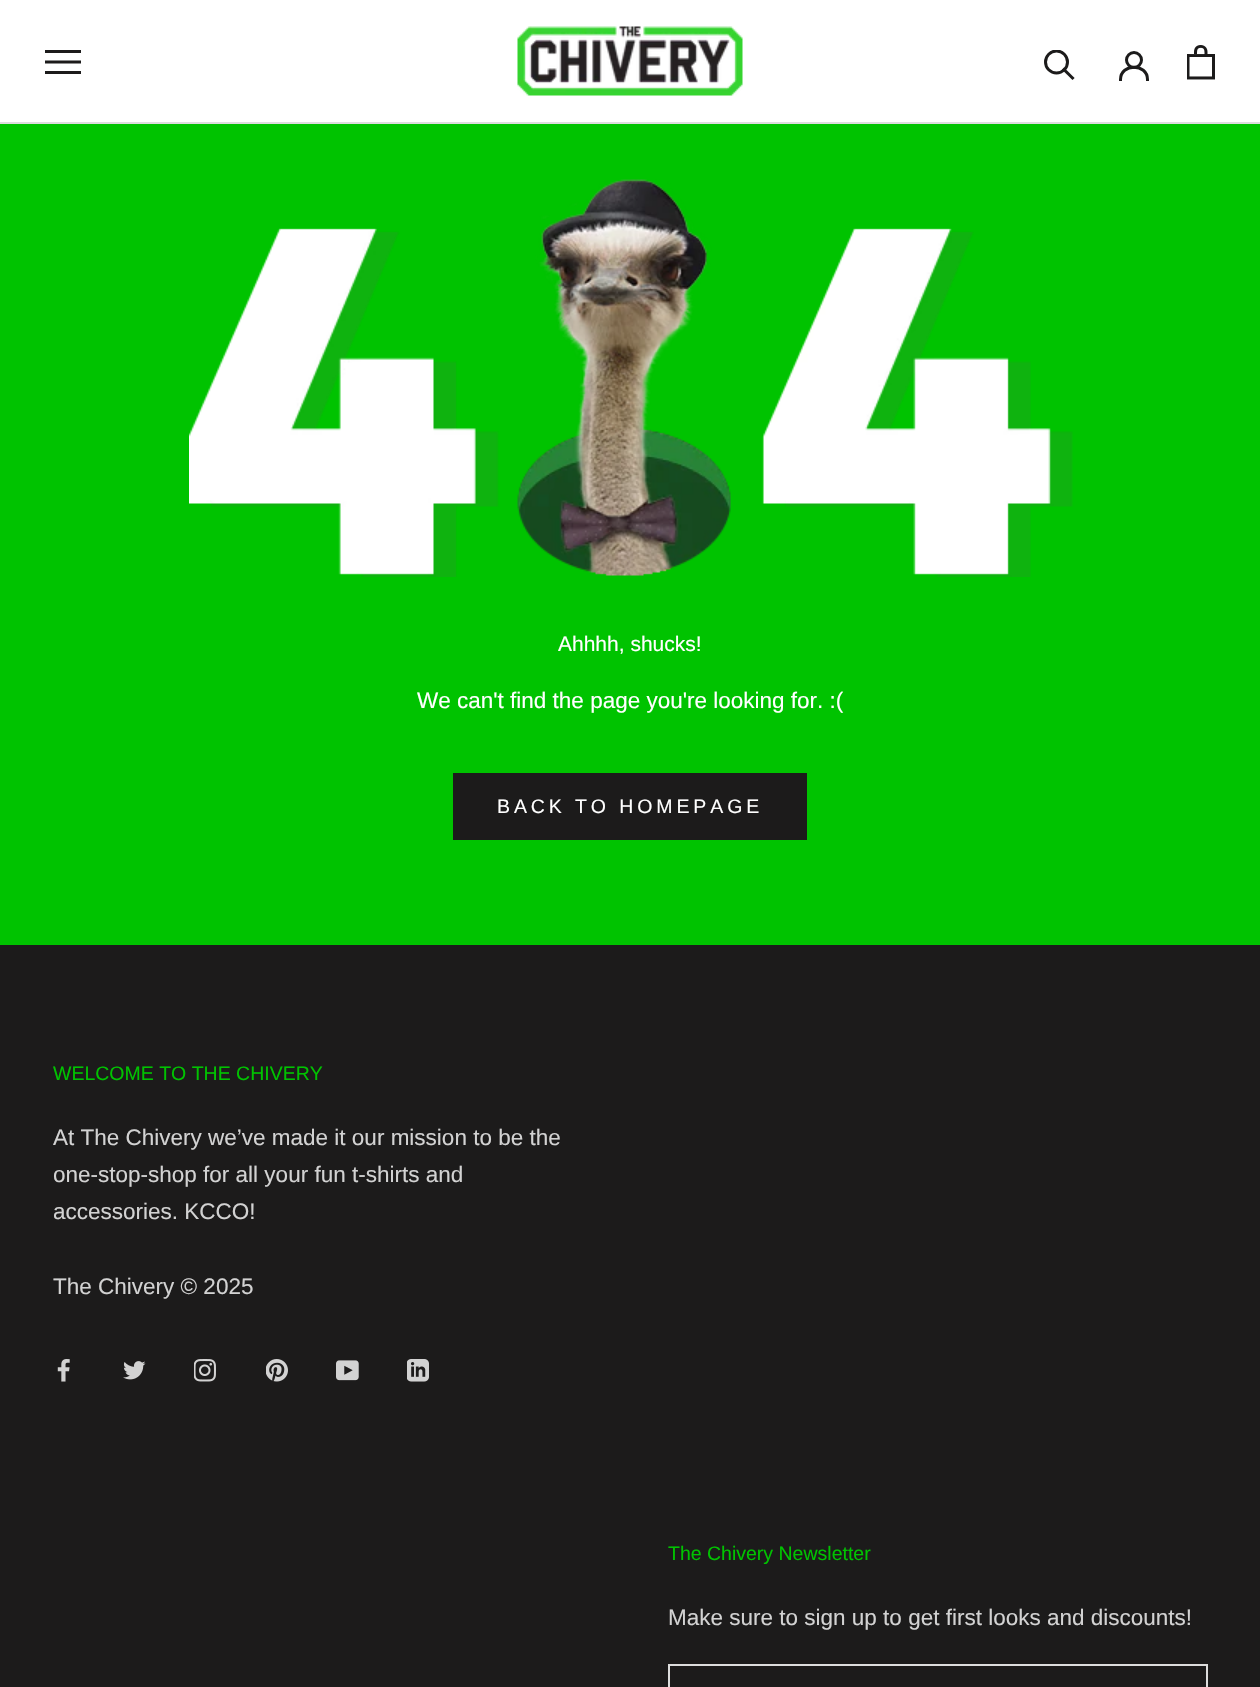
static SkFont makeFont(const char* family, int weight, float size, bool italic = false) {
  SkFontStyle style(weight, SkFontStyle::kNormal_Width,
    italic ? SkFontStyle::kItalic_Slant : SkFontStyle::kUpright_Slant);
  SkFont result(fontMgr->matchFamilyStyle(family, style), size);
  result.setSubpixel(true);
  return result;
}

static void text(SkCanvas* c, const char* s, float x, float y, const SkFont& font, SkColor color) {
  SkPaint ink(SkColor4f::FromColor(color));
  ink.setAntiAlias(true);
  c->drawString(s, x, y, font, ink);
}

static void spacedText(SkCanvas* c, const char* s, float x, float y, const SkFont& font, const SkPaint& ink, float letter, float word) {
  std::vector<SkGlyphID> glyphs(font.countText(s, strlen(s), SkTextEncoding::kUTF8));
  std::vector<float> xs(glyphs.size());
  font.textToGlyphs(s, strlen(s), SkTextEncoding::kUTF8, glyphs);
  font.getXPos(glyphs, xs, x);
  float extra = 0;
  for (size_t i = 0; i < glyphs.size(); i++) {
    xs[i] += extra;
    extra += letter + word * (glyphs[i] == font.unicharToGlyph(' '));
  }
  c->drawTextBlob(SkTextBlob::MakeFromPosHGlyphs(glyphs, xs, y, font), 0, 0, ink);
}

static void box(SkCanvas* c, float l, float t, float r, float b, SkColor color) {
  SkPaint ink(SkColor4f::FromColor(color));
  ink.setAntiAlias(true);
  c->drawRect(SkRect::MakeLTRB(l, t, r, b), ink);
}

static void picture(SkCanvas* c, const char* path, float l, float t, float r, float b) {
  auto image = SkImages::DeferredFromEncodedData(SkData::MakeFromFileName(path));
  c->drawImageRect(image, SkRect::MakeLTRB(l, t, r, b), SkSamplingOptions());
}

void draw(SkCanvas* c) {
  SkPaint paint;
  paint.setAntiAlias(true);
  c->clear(0xff00c300);
  box(c, 0, 0, 1260, 122, 0xffffffff);
  box(c, 0, 122, 1260, 124, 0xffdddddd);
  paint.setColor(0xff1c1b1b);
  c->drawPath(SkPathBuilder().moveTo(45, 74).lineTo(45, 71).lineTo(81, 71).lineTo(81, 74).close().moveTo(45, 60.5f).lineTo(81, 60.5f).lineTo(81, 63.5f).lineTo(45, 63.5f).close().moveTo(45, 50).lineTo(81, 50).lineTo(81, 53).lineTo(45, 53).close().detach(), paint);
  picture(c, "img_01.png", 517, 26, 743, 96);
  paint.setStyle(SkPaint::kStroke_Style);
  paint.setStrokeWidth(3);
  paint.setStrokeCap(SkPaint::kSquare_Cap);
  c->drawPath(SkPathBuilder().moveTo(1072.5f, 78).lineTo(1064, 69.5f).detach(), paint);
  c->save();
  c->clipRect(SkRect::MakeLTRB(1044, 50, 1076, 81));
  paint.setStrokeCap(SkPaint::kButt_Cap);
  c->drawCircle(1056.5f, 62, 11, paint);
  c->restore();
  paint.setStrokeCap(SkPaint::kSquare_Cap);
  c->drawPath(SkPathBuilder().moveTo(1120.5f, 79.5f).cubicTo(1120.5f, 63, 1147.5f, 63, 1147.5f, 79.5f).detach(), paint);
  paint.setStrokeCap(SkPaint::kButt_Cap);
  c->drawCircle(1134, 60, 7.5f, paint);
  picture(c, "img_02.png", 1187, 45, 1215, 80);
  picture(c, "img_03.png", 189, 179, 1073, 577);
  SkFont face1 = makeFont("Liberation Sans", 400, 21);
  text(c, "Ahhhh, shucks!", 558, 651, face1, 0xffffffff);
  SkFont face2 = makeFont("Liberation Sans", 400, 22.5f);
  text(c, "We can't find the page you're looking for. :(", 417, 708, face2, 0xffffffff);
  paint.setStrokeWidth(2);
  c->drawRect(SkRect::MakeLTRB(454, 774, 806, 839), paint);
  box(c, 455, 775, 805, 838, 0xff1c1b1b);
  SkFont face3 = makeFont("Liberation Sans", 400, 19.5f);
  paint.setStyle(SkPaint::kFill_Style);
  paint.setColor(0xffffffff);
  spacedText(c, "BACK TO HOMEPAGE", 497, 813, face3, paint, 3.9f, 0);
  box(c, 0, 945, 1260, 1687, 0xff1c1b1b);
  text(c, "WELCOME TO THE CHIVERY", 53, 1080, face3, 0xff00c300);
  text(c, "At The Chivery we’ve made it our mission to be the", 53, 1145, face2, 0xffd2d2d2);
  text(c, "one-stop-shop for all your fun t-shirts and", 53, 1182, face2, 0xffd2d2d2);
  text(c, "accessories. KCCO!", 53, 1219, face2, 0xffd2d2d2);
  text(c, "The Chivery © 2025", 53, 1294, face2, 0xffd2d2d2);
  picture(c, "img_04.png", 57, 1359, 70, 1382);
  picture(c, "img_05.png", 123, 1361, 146, 1380);
  picture(c, "img_06.png", 194, 1359, 216, 1382);
  picture(c, "img_07.png", 266, 1359, 288, 1382);
  picture(c, "img_08.png", 336, 1360, 359, 1381);
  picture(c, "img_09.png", 407, 1359, 429, 1382);
  text(c, "The Chivery Newsletter", 668, 1560, face3, 0xff00c300);
  text(c, "Make sure to sign up to get first looks and discounts!", 668, 1625, face2, 0xffd2d2d2);
  paint.setStyle(SkPaint::kStroke_Style);
  paint.setColor(0xffdddddd);
  c->drawRect(SkRect::MakeLTRB(669, 1665, 1207, 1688), paint);
}
